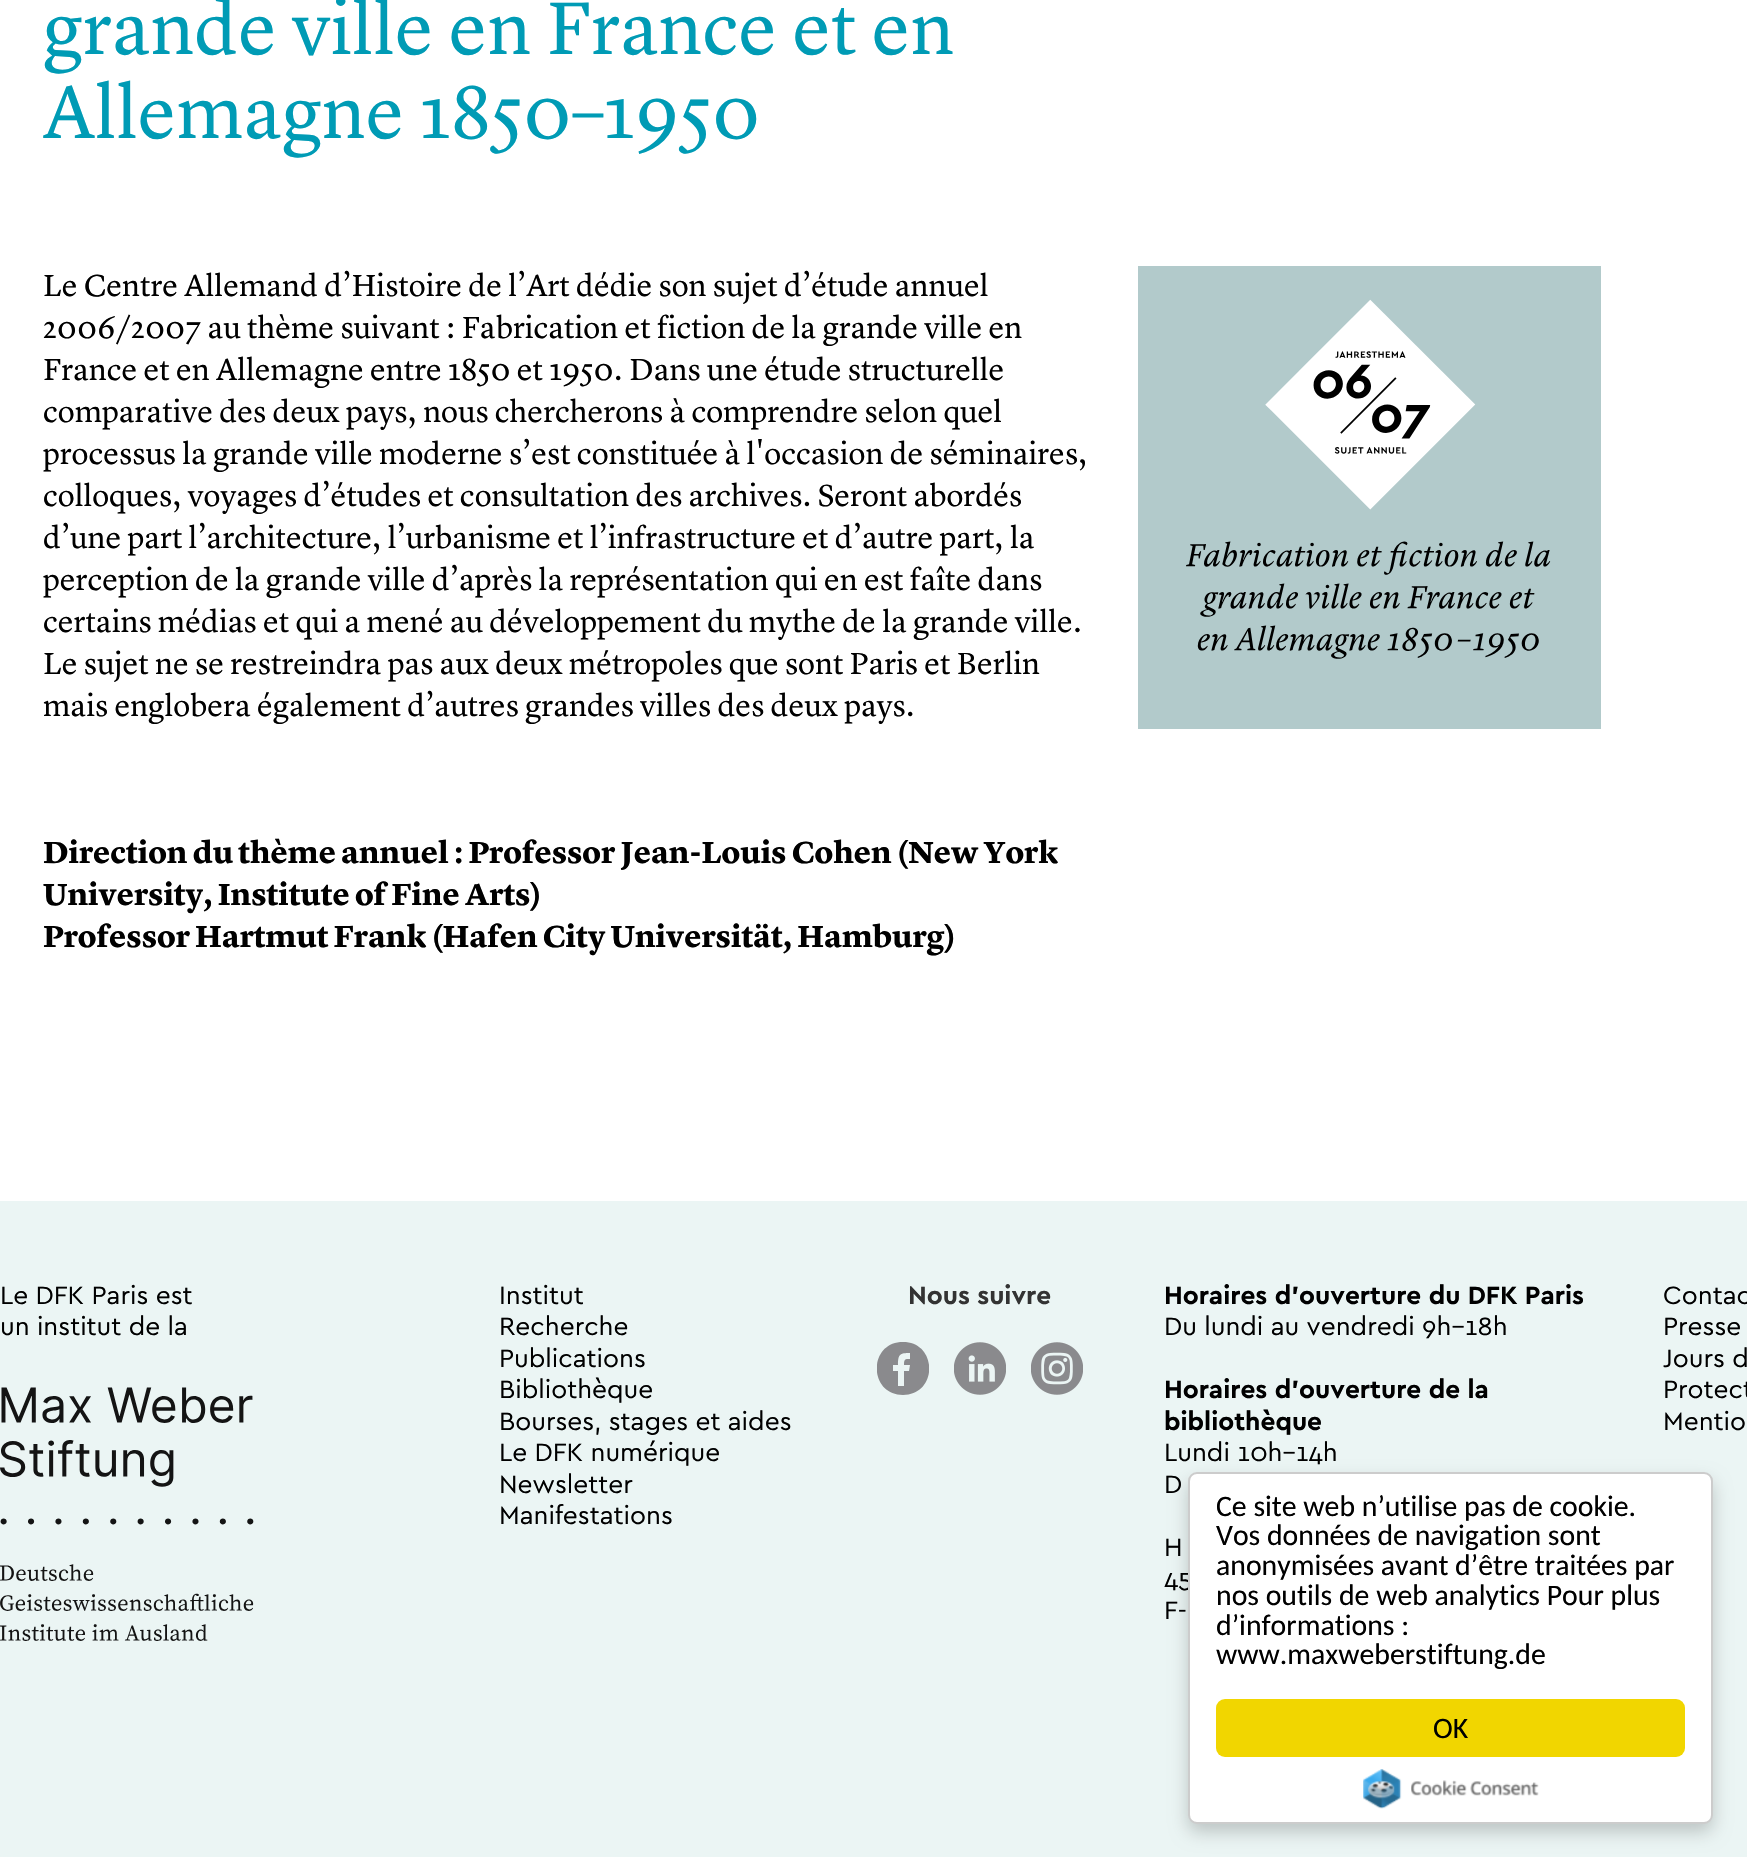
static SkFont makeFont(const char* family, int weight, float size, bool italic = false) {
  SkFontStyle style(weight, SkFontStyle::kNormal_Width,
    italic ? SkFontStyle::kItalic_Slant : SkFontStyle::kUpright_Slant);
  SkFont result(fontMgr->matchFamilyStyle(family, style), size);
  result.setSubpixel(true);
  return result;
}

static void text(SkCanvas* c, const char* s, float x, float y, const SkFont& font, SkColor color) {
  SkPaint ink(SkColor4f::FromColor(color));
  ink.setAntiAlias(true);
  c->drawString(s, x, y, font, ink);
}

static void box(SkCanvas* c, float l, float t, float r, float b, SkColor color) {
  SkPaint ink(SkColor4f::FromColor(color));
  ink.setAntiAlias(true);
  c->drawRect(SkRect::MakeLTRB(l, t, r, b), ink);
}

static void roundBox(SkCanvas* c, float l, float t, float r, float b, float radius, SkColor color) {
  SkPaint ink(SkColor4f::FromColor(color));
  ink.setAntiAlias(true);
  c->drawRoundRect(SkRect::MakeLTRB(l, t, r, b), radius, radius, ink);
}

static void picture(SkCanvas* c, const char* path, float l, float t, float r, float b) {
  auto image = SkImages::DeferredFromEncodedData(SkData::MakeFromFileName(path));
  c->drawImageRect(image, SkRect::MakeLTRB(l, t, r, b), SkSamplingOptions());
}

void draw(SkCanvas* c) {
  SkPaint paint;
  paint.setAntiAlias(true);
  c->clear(0xffffffff);
  SkFont face1 = makeFont("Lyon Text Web", 400, 77);
  text(c, "grande ville en France et en", 43, 54, face1, 0xff009bb5);
  SkFont face2 = makeFont("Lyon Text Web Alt", 400, 77);
  text(c, "Allemagne 1850–1950", 43, 138, face2, 0xff009bb5);
  SkFont face3 = makeFont("Lyon Text Web", 400, 31.5f);
  text(c, "Le Centre Allemand d’Histoire de l’Art dédie son sujet d’étude annuel", 43, 296, face3, 0xff000000);
  SkFont face4 = makeFont("Lyon Text Web Alt", 400, 31.5f);
  text(c, "2006/2007 au thème suivant : Fabrication et fiction de la grande ville en", 43, 338, face4, 0xff000000);
  text(c, "France et en Allemagne entre 1850 et 1950. Dans une étude structurelle", 43, 380, face4, 0xff000000);
  text(c, "comparative des deux pays, nous chercherons à comprendre selon quel", 43, 422, face3, 0xff000000);
  text(c, "processus la grande ville moderne s’est constituée à l'occasion de séminaires,", 43, 464, face3, 0xff000000);
  text(c, "colloques, voyages d’études et consultation des archives. Seront abordés", 43, 506, face3, 0xff000000);
  text(c, "d’une part l’architecture, l’urbanisme et l’infrastructure et d’autre part, la", 43, 548, face3, 0xff000000);
  text(c, "perception de la grande ville d’après la représentation qui en est faîte dans", 43, 590, face3, 0xff000000);
  text(c, "certains médias et qui a mené au développement du mythe de la grande ville.", 43, 632, face3, 0xff000000);
  text(c, "Le sujet ne se restreindra pas aux deux métropoles que sont Paris et Berlin", 43, 674, face3, 0xff000000);
  text(c, "mais englobera également d’autres grandes villes des deux pays.", 43, 716, face3, 0xff000000);
  SkFont face5 = makeFont("Lyon Text Web", 700, 31.5f);
  text(c, "Direction du thème annuel : Professor Jean-Louis Cohen (New York", 43, 863, face5, 0xff000000);
  text(c, "University, Institute of Fine Arts)", 43, 905, face5, 0xff000000);
  text(c, "Professor Hartmut Frank (Hafen City Universität, Hamburg)", 43, 947, face5, 0xff000000);
  picture(c, "img_01.png", 1138, 266, 1601, 729);
  box(c, 0, 1201, 1747, 1857, 0xffebf5f4);
  SkFont face6 = makeFont("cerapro", 400, 26.25f);
  text(c, "Le DFK Paris est", 0, 1304, face6, 0xff000000);
  text(c, "un institut de la", 0, 1335, face6, 0xff000000);
  picture(c, "img_02.png", 0, 1387, 254, 1641);
  text(c, "Institut", 499, 1304, face6, 0xff000000);
  text(c, "Recherche", 499, 1335, face6, 0xff000000);
  text(c, "Publications", 499, 1367, face6, 0xff000000);
  text(c, "Bibliothèque", 499, 1398, face6, 0xff000000);
  text(c, "Bourses, stages et aides", 499, 1430, face6, 0xff000000);
  text(c, "Le DFK numérique", 499, 1461, face6, 0xff000000);
  text(c, "Newsletter", 499, 1493, face6, 0xff000000);
  text(c, "Manifestations", 499, 1524, face6, 0xff000000);
  SkFont face7 = makeFont("cerapro", 700, 26.25f);
  text(c, "Nous suivre", 908, 1304, face7, 0xff333333);
  c->save();
  c->clipRect(SkRect::MakeLTRB(877, 1342, 929, 1395));
  paint.setColor(0xff8a8a8d);
  c->drawPath(SkPathBuilder().moveTo(903, 1342).cubicTo(868, 1342, 868, 1395, 903, 1395).cubicTo(938, 1395, 938, 1342, 903, 1342).close().moveTo(910, 1359).cubicTo(905, 1359, 904, 1359, 904, 1365).lineTo(910, 1365).lineTo(909, 1371).lineTo(904, 1371).lineTo(904, 1386).lineTo(898, 1386).lineTo(898, 1371).lineTo(893, 1371).lineTo(893, 1365).lineTo(898, 1365).cubicTo(898, 1354, 900, 1353, 910, 1353).close().detach(), paint);
  c->restore();
  picture(c, "img_03.png", 954, 1342, 1006, 1395);
  picture(c, "img_04.png", 1031, 1342, 1083, 1395);
  text(c, "Horaires d’ouverture du DFK Paris", 1164, 1304, face7, 0xff000000);
  text(c, "Du lundi au vendredi 9h–18h", 1164, 1335, face6, 0xff000000);
  text(c, "Horaires d’ouverture de la", 1164, 1398, face7, 0xff000000);
  text(c, "bibliothèque", 1164, 1430, face7, 0xff000000);
  text(c, "Lundi 10h–14h", 1164, 1461, face6, 0xff000000);
  text(c, "D", 1164, 1493, face6, 0xff000000);
  text(c, "H", 1164, 1556, face6, 0xff000000);
  text(c, "45", 1164, 1587, face6, 0xff000000);
  text(c, "F-", 1164, 1619, face6, 0xff000000);
  text(c, "Contac", 1663, 1304, face6, 0xff000000);
  text(c, "Presse", 1663, 1335, face6, 0xff000000);
  text(c, "Jours d", 1663, 1367, face6, 0xff000000);
  text(c, "Protect", 1663, 1398, face6, 0xff000000);
  text(c, "Mentio", 1663, 1430, face6, 0xff000000);
  paint.setColor(0x33000000);
  paint.setMaskFilter(SkMaskFilter::MakeBlur(kNormal_SkBlurStyle, 9));
  c->drawRoundRect(SkRect::MakeLTRB(1188, 1481, 1713, 1832), 9, 9, paint);
  paint.setMaskFilter(nullptr);
  paint.setColor(0xffffffff);
  c->drawRoundRect(SkRect::MakeLTRB(1189, 1473, 1712, 1823), 8, 8, paint);
  paint.setStyle(SkPaint::kStroke_Style);
  paint.setStrokeWidth(2);
  paint.setColor(0xffcccccc);
  c->drawRoundRect(SkRect::MakeLTRB(1189, 1473, 1712, 1823), 8, 8, paint);
  SkFont face8 = makeFont("Carlito", 400, 29.75f);
  text(c, "Ce site web n’utilise pas de cookie.", 1216, 1516, face8, 0xff000000);
  text(c, "Vos données de navigation sont", 1216, 1545, face8, 0xff000000);
  text(c, "anonymisées avant d’être traitées par", 1216, 1575, face8, 0xff000000);
  text(c, "nos outils de web analytics Pour plus", 1216, 1605, face8, 0xff000000);
  text(c, "d’informations :", 1216, 1635, face8, 0xff000000);
  text(c, "www.maxweberstiftung.de", 1216, 1664, face8, 0xff000000);
  roundBox(c, 1216, 1699, 1685, 1757, 9, 0xfff1d600);
  text(c, "OK", 1433, 1738, face8, 0xff000000);
  picture(c, "img_05.png", 1363, 1769, 1539, 1809);
}
